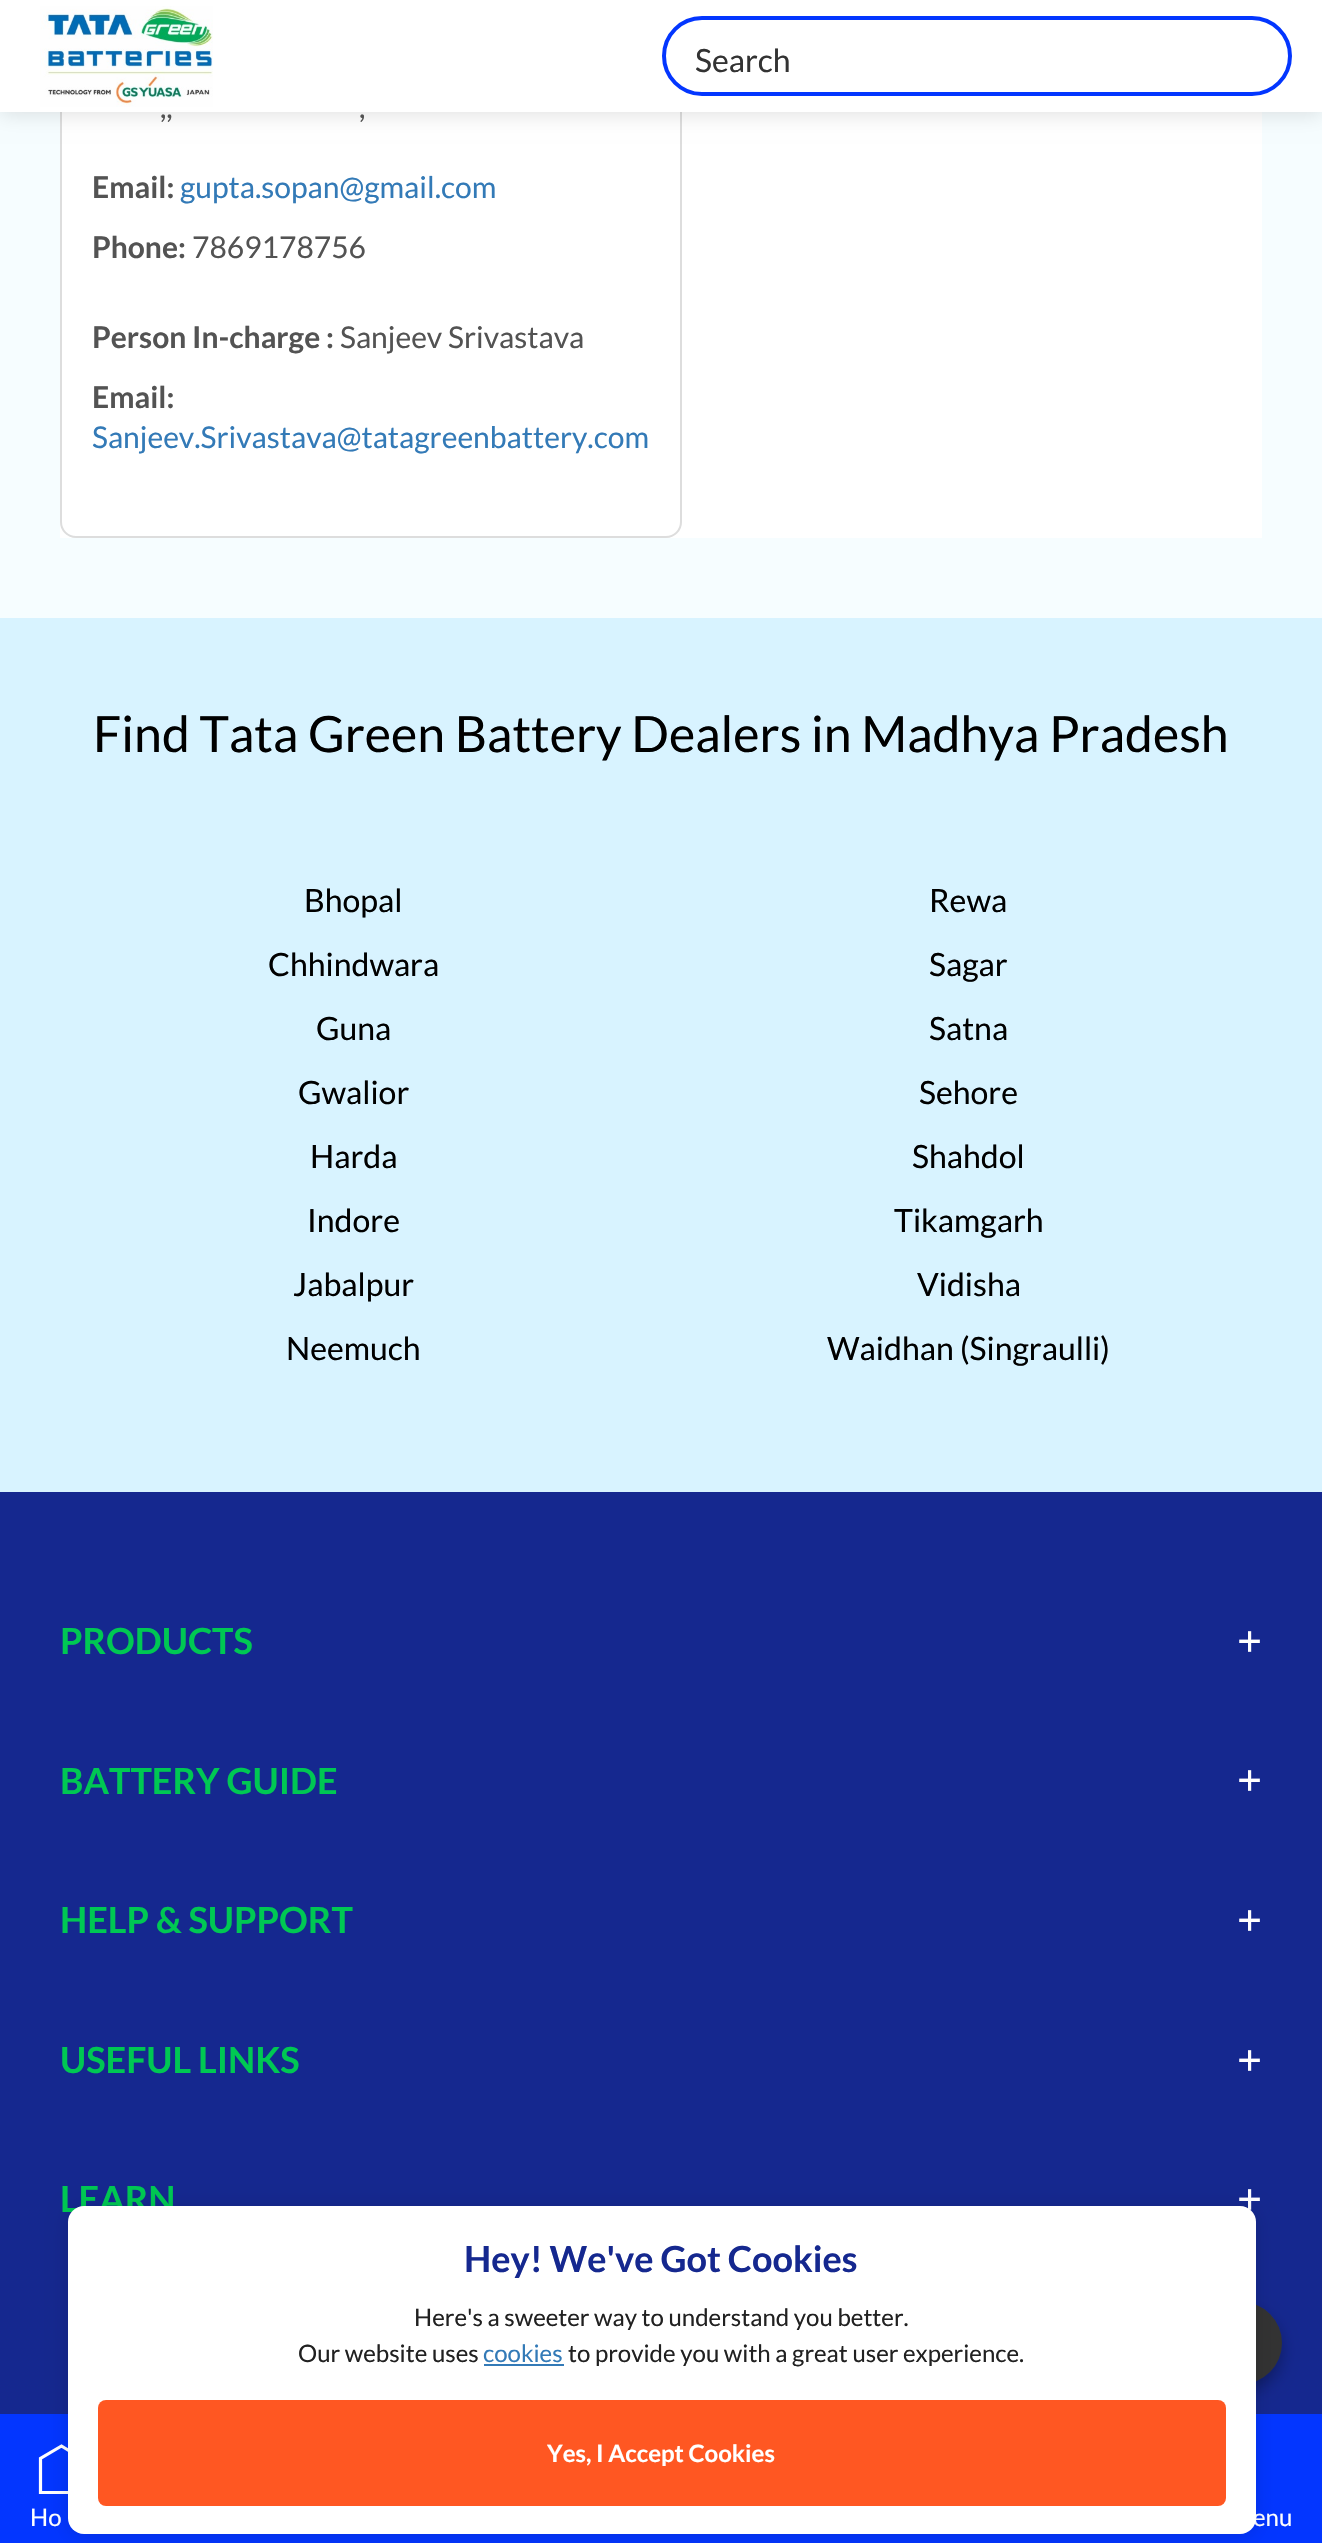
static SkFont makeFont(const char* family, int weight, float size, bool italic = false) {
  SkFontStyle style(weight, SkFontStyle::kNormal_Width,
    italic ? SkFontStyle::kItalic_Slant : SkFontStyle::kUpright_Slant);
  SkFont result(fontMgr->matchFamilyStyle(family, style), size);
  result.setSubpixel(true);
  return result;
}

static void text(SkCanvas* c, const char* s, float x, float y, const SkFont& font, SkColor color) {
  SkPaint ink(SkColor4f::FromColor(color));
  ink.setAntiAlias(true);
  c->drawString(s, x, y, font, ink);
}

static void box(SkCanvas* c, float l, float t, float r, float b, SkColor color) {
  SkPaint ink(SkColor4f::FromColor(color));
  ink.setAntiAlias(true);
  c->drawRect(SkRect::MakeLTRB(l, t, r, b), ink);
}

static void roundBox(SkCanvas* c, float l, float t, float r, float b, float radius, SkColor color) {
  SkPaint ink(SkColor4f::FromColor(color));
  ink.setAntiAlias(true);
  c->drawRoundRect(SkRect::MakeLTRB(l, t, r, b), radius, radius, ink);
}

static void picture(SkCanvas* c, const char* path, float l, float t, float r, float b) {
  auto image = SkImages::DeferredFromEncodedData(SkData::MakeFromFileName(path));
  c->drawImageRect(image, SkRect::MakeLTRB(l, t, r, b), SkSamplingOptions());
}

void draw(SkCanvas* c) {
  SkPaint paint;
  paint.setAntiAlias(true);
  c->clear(0xff15288f);
  box(c, 0, 112, 1322, 618, 0xfff6fdff);
  box(c, 60, 112, 1262, 538, 0xffffffff);
  paint.setStyle(SkPaint::kStroke_Style);
  paint.setStrokeWidth(2);
  paint.setColor(0xffdddddd);
  c->drawRoundRect(SkRect::MakeLTRB(61, -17, 681, 537), 15, 15, paint);
  paint.setStyle(SkPaint::kFill_Style);
  paint.setColor(0x1f000000);
  paint.setMaskFilter(SkMaskFilter::MakeBlur(kNormal_SkBlurStyle, 10));
  c->drawRect(SkRect::MakeLTRB(0, 2, 1322, 114), paint);
  paint.setMaskFilter(nullptr);
  box(c, 0, 0, 1322, 112, 0xffffffff);
  picture(c, "img_01.png", 40, 6, 213, 107);
  paint.setStyle(SkPaint::kStroke_Style);
  paint.setStrokeWidth(4);
  paint.setColor(0xff0336ff);
  c->drawRoundRect(SkRect::MakeLTRB(664, 18, 1290, 94), 38, 38, paint);
  SkFont face1 = makeFont("Lato", 400, 32);
  text(c, "Search", 695, 72, face1, 0xff333333);
  paint.setStyle(SkPaint::kFill_Style);
  paint.setColor(0x4d000000);
  paint.setMaskFilter(SkMaskFilter::MakeBlur(kNormal_SkBlurStyle, 8));
  c->drawRoundRect(SkRect::MakeLTRB(842, 2310, 1282, 2392), 41, 41, paint);
  paint.setMaskFilter(nullptr);
  box(c, 0, 2414, 1322, 2543, 0xff0336ff);
  c->save();
  c->clipRect(SkRect::MakeLTRB(36, 2444, 86, 2494));
  paint.setStyle(SkPaint::kStroke_Style);
  paint.setStrokeWidth(3.2f);
  paint.setColor(0xffffffff);
  c->drawPath(SkPathBuilder().moveTo(40.5f, 2492.5f).lineTo(81.5f, 2492.5f).lineTo(81.5f, 2458.5f).lineTo(61.5f, 2446).lineTo(40.5f, 2458.5f).close().detach(), paint);
  c->restore();
  SkFont face2 = makeFont("Lato", 400, 24);
  text(c, "Ho", 30, 2526, face2, 0xffffffff);
  text(c, "enu", 1253, 2526, face2, 0xffffffff);
  SkFont face3 = makeFont("Lato", 400, 30);
  text(c, ",,", 160, 118, face3, 0xff535353);
  text(c, ",", 359, 118, face3, 0xff535353);
  SkFont face4 = makeFont("Lato", 700, 30);
  text(c, "Email:", 92, 198, face4, 0xff535353);
  text(c, "gupta.sopan@gmail.com", 180, 198, face3, 0xff337ab7);
  text(c, "Phone:", 92, 258, face4, 0xff535353);
  text(c, "7869178756", 192, 258, face3, 0xff535353);
  text(c, "Person In-charge :", 92, 348, face4, 0xff535353);
  text(c, "Sanjeev Srivastava", 340, 348, face3, 0xff535353);
  text(c, "Email:", 92, 408, face4, 0xff535353);
  text(c, "Sanjeev.Srivastava@tatagreenbattery.com", 92, 448, face3, 0xff337ab7);
  box(c, 0, 618, 1322, 1492, 0xffd8f3ff);
  SkFont face5 = makeFont("Lato", 400, 50);
  text(c, "Find Tata Green Battery Dealers in Madhya Pradesh", 93, 752, face5, 0xff000000);
  text(c, "Bhopal", 304, 912, face1, 0xff000000);
  text(c, "Rewa", 929, 912, face1, 0xff000000);
  text(c, "Chhindwara", 268, 976, face1, 0xff000000);
  text(c, "Sagar", 929, 976, face1, 0xff000000);
  text(c, "Guna", 316, 1040, face1, 0xff000000);
  text(c, "Satna", 929, 1040, face1, 0xff000000);
  text(c, "Gwalior", 298, 1104, face1, 0xff000000);
  text(c, "Sehore", 919, 1104, face1, 0xff000000);
  text(c, "Harda", 310, 1168, face1, 0xff000000);
  text(c, "Shahdol", 912, 1168, face1, 0xff000000);
  text(c, "Indore", 307, 1232, face1, 0xff000000);
  text(c, "Tikamgarh", 894, 1232, face1, 0xff000000);
  text(c, "Jabalpur", 293, 1296, face1, 0xff000000);
  text(c, "Vidisha", 917, 1296, face1, 0xff000000);
  text(c, "Neemuch", 286, 1360, face1, 0xff000000);
  text(c, "Waidhan (Singraulli)", 827, 1360, face1, 0xff000000);
  SkFont face6 = makeFont("Lato", 700, 36);
  text(c, "PRODUCTS", 60, 1654, face6, 0xff00c853);
  SkFont face7 = makeFont("Liberation Serif", 700, 44);
  text(c, "+", 1237, 1656, face7, 0xffffffff);
  text(c, "BATTERY GUIDE", 60, 1794, face6, 0xff00c853);
  text(c, "+", 1237, 1795, face7, 0xffffffff);
  text(c, "HELP & SUPPORT", 60, 1933, face6, 0xff00c853);
  text(c, "+", 1237, 1935, face7, 0xffffffff);
  text(c, "USEFUL LINKS", 60, 2073, face6, 0xff00c853);
  text(c, "+", 1237, 2075, face7, 0xffffffff);
  text(c, "LEARN", 60, 2212, face6, 0xff00c853);
  text(c, "+", 1237, 2214, face7, 0xffffffff);
  roundBox(c, 842, 2302, 1282, 2384, 41, 0xff333333);
  paint.setStyle(SkPaint::kFill_Style);
  paint.setColor(0x1f000000);
  paint.setMaskFilter(SkMaskFilter::MakeBlur(kNormal_SkBlurStyle, 10));
  c->drawRoundRect(SkRect::MakeLTRB(68, 2208, 1256, 2536), 16, 16, paint);
  paint.setMaskFilter(nullptr);
  roundBox(c, 68, 2206, 1256, 2534, 16, 0xffffffff);
  text(c, "Hey! We've Got Cookies", 464, 2272, face6, 0xff15288f);
  text(c, "Here's a sweeter way to understand you better.", 414, 2326, face2, 0xff212121);
  text(c, "Our website uses", 298, 2362, face2, 0xff212121);
  text(c, "cookies", 483, 2362, face2, 0xff337ab7);
  box(c, 484, 2364, 564, 2366, 0xff337ab7);
  text(c, "to provide you with a great user experience.", 568, 2362, face2, 0xff212121);
  roundBox(c, 98, 2400, 1226, 2506, 8, 0xffff5722);
  SkFont face8 = makeFont("Lato", 700, 24);
  text(c, "Yes, I Accept Cookies", 547, 2462, face8, 0xffffffff);
}
